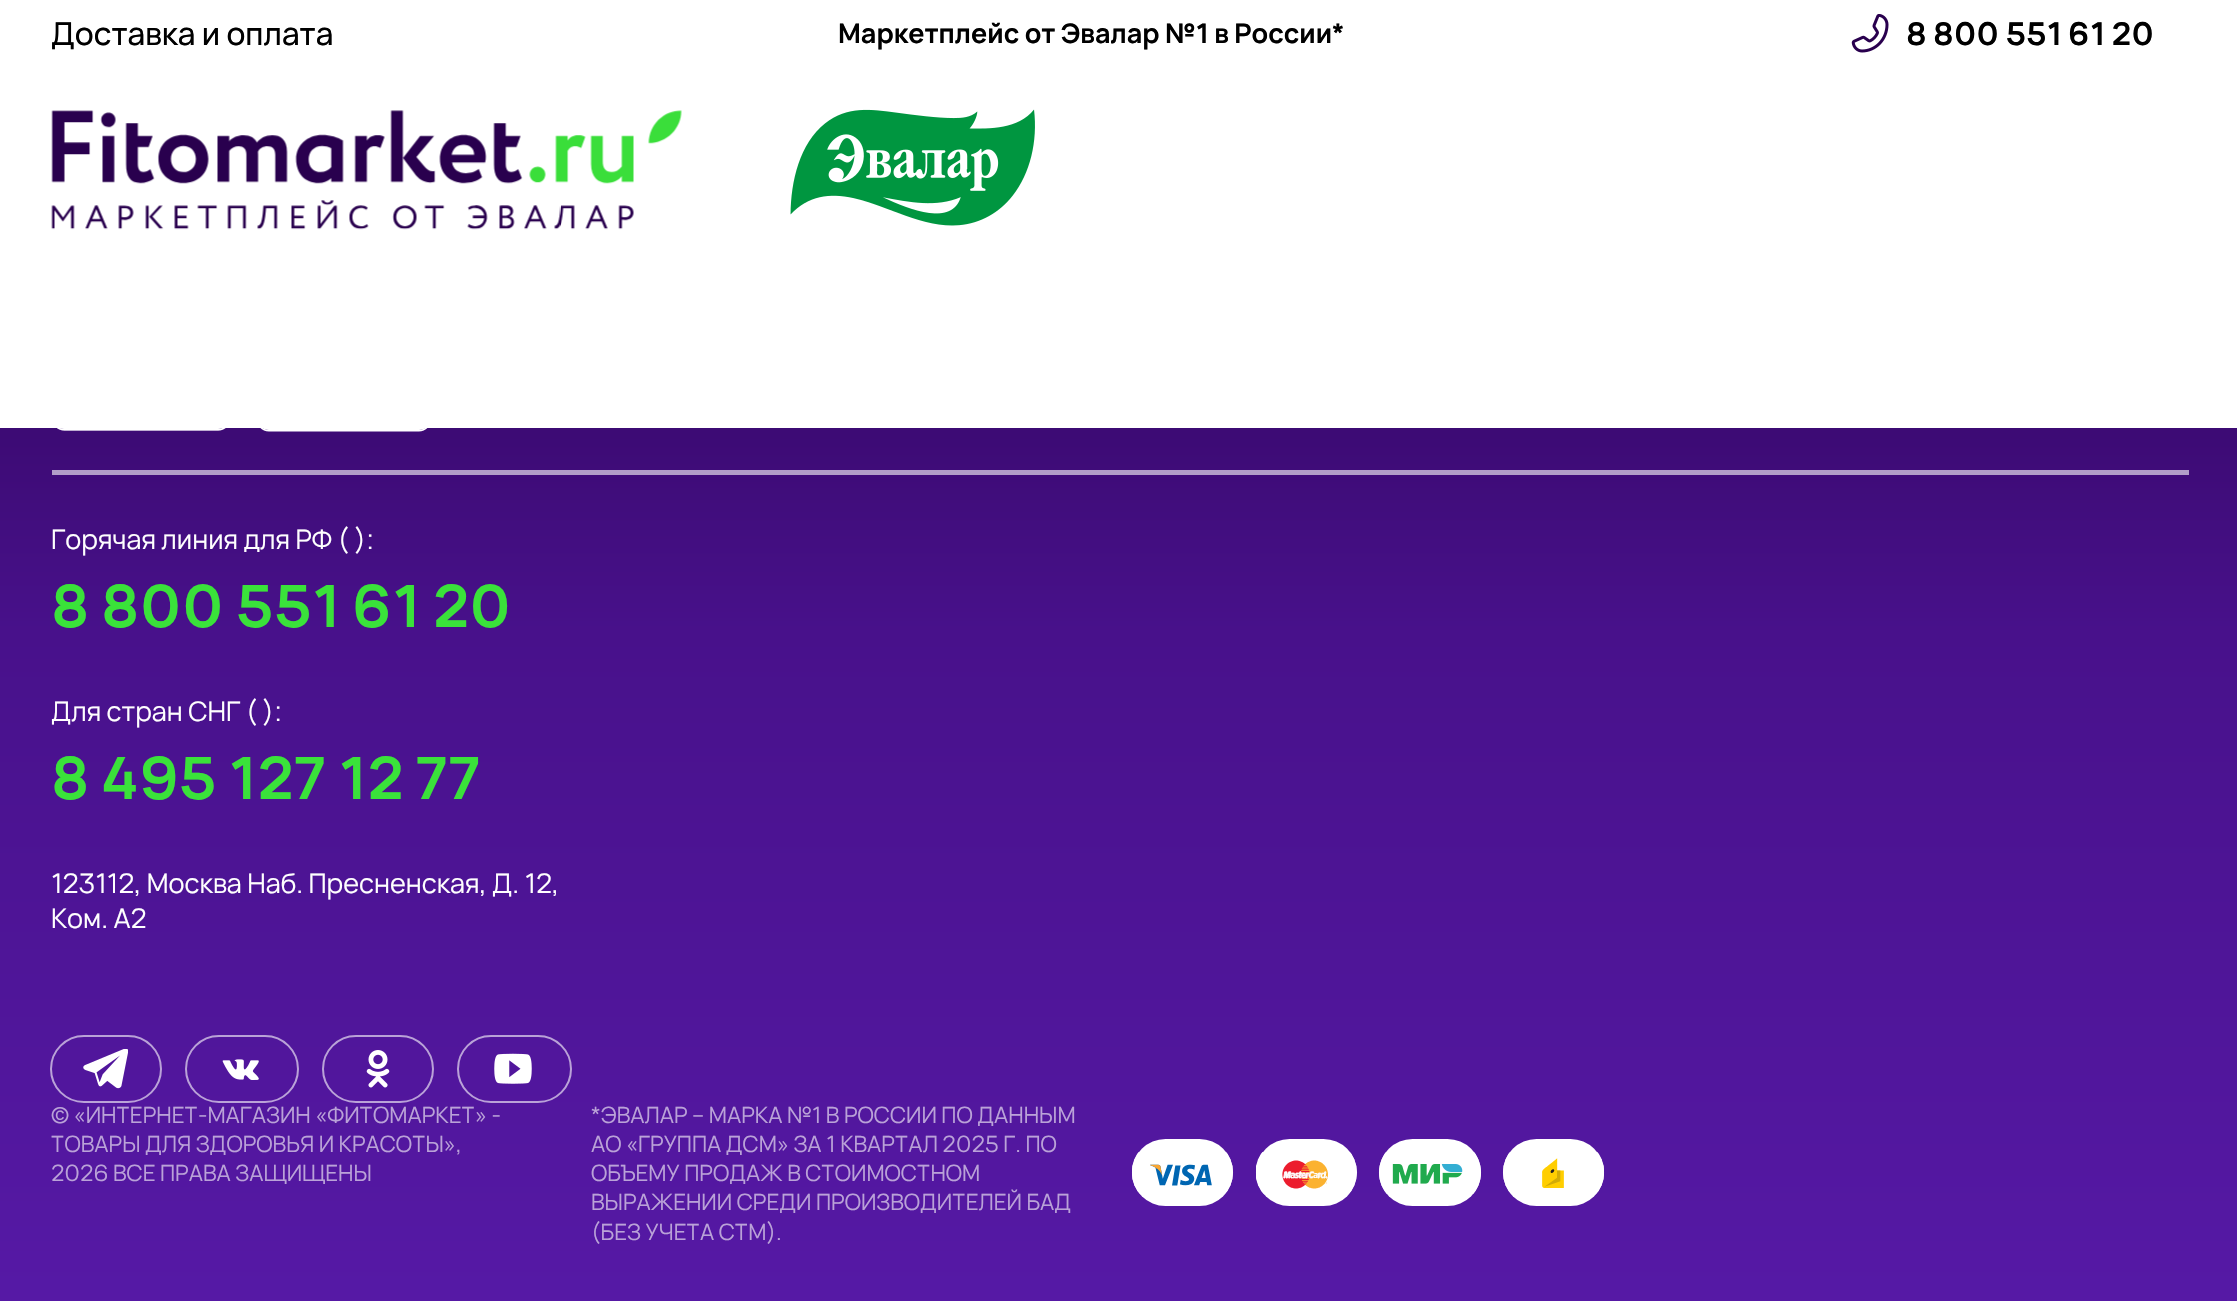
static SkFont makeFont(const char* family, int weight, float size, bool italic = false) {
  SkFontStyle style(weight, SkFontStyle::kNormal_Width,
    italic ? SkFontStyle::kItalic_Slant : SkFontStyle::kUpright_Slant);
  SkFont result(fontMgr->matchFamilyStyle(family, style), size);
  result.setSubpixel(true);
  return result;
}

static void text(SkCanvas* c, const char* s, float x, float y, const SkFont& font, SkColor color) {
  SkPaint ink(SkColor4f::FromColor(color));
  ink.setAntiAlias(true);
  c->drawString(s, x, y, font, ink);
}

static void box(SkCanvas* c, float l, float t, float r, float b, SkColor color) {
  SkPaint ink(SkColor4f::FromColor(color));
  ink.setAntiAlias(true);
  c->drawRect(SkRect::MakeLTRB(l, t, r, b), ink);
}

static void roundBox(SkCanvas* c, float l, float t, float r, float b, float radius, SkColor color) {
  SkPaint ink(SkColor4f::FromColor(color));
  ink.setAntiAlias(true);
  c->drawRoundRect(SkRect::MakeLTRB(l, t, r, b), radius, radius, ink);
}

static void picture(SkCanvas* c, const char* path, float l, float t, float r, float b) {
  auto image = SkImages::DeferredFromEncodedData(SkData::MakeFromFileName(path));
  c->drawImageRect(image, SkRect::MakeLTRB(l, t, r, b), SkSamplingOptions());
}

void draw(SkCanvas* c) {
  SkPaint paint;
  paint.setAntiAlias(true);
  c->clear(0xffffffff);
  SkFont face1 = makeFont("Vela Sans", 500, 31.5f);
  text(c, "Доставка и оплата", 51, 45, face1, 0xff000000);
  SkFont face2 = makeFont("Vela Sans", 700, 27);
  text(c, "Маркетплейс от Эвалар №1 в России*", 838, 43, face2, 0xff000000);
  picture(c, "img_01.png", 1851, 14, 1889, 53);
  SkFont face3 = makeFont("Vela Sans", 700, 31.5f);
  text(c, "8 800 551 61 20", 1906, 45, face3, 0xff000000);
  picture(c, "img_02.png", 51, 110, 682, 230);
  picture(c, "img_03.png", 790, 109, 1035, 226);
  {
    const SkColor colors[] = {0xff5619a6, 0xff48118b, 0xff29004e};
    const float stops[] = {0, 0.55f, 1};
    const SkPoint ends[] = {{1119, 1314}, {1119, 79}};
    paint.setShader(SkGradientShader::MakeLinear(ends, colors, stops, 3, SkTileMode::kClamp));
    paint.setAlpha(255);
  }
  c->drawRect(SkRect::MakeLTRB(0, 428, 2237, 1301), paint);
  picture(c, "img_04.png", 57, 428, 226, 431);
  picture(c, "img_05.png", 260, 428, 428, 432);
  box(c, 52, 470, 2189, 475, 0xffb29ec9);
  SkFont face4 = makeFont("Vela Sans", 400, 27);
  text(c, "Горячая линия для РФ ( ):", 51, 549, face4, 0xffffffff);
  SkFont face5 = makeFont("Vela Sans", 700, 58.5f);
  text(c, "8 800 551 61 20", 51, 627, face5, 0xff3ae23a);
  text(c, "Для стран СНГ ( ):", 51, 721, face4, 0xffffffff);
  text(c, "8 495 127 12 77", 51, 799, face5, 0xff3ae23a);
  text(c, "123112, Москва Наб. Пресненская, Д. 12,", 51, 893, face4, 0xffffffff);
  text(c, "Ком. А2", 51, 928, face4, 0xffffffff);
  paint.setStyle(SkPaint::kStroke_Style);
  paint.setStrokeWidth(2);
  paint.setShader(nullptr);
  paint.setColor(0x99ffffff);
  c->drawRoundRect(SkRect::MakeLTRB(51, 1036, 161, 1102), 33, 33, paint);
  picture(c, "img_06.png", 83, 1049, 128, 1089);
  c->drawRoundRect(SkRect::MakeLTRB(186, 1036, 298, 1102), 33, 33, paint);
  picture(c, "img_07.png", 222, 1059, 259, 1080);
  c->drawRoundRect(SkRect::MakeLTRB(323, 1036, 433, 1102), 33, 33, paint);
  picture(c, "img_08.png", 366, 1050, 390, 1088);
  c->drawRoundRect(SkRect::MakeLTRB(458, 1036, 571, 1102), 33, 33, paint);
  picture(c, "img_09.png", 494, 1053, 532, 1084);
  SkFont face6 = makeFont("Vela Sans", 400, 22.5f);
  text(c, "© «ИНТЕРНЕТ-МАГАЗИН «ФИТОМАРКЕТ» -", 51, 1123, face6, 0xffbaa2d8);
  text(c, "ТОВАРЫ ДЛЯ ЗДОРОВЬЯ И КРАСОТЫ»,", 51, 1152, face6, 0xffbaa2d8);
  text(c, "2026 ВСЕ ПРАВА ЗАЩИЩЕНЫ", 51, 1181, face6, 0xffbaa2d8);
  text(c, "*ЭВАЛАР – МАРКА №1 В РОССИИ ПО ДАННЫМ", 591, 1123, face6, 0xffbaa2d8);
  text(c, "АО «ГРУППА ДСМ» ЗА 1 КВАРТАЛ 2025 Г. ПО", 591, 1152, face6, 0xffbaa2d8);
  text(c, "ОБЪЕМУ ПРОДАЖ В СТОИМОСТНОМ", 591, 1181, face6, 0xffbaa2d8);
  text(c, "ВЫРАЖЕНИИ СРЕДИ ПРОИЗВОДИТЕЛЕЙ БАД", 591, 1210, face6, 0xffbaa2d8);
  text(c, "(БЕЗ УЧЕТА СТМ).", 591, 1240, face6, 0xffbaa2d8);
  roundBox(c, 1132, 1139, 1233, 1206, 33.5f, 0xffffffff);
  picture(c, "img_10.png", 1132, 1152, 1233, 1195);
  roundBox(c, 1256, 1139, 1357, 1206, 33.5f, 0xffffffff);
  picture(c, "img_11.png", 1256, 1152, 1357, 1195);
  roundBox(c, 1379, 1139, 1481, 1206, 33.5f, 0xffffffff);
  picture(c, "img_12.png", 1379, 1152, 1481, 1194);
  roundBox(c, 1503, 1139, 1604, 1206, 33.5f, 0xffffffff);
  picture(c, "img_13.png", 1503, 1152, 1604, 1195);
}
